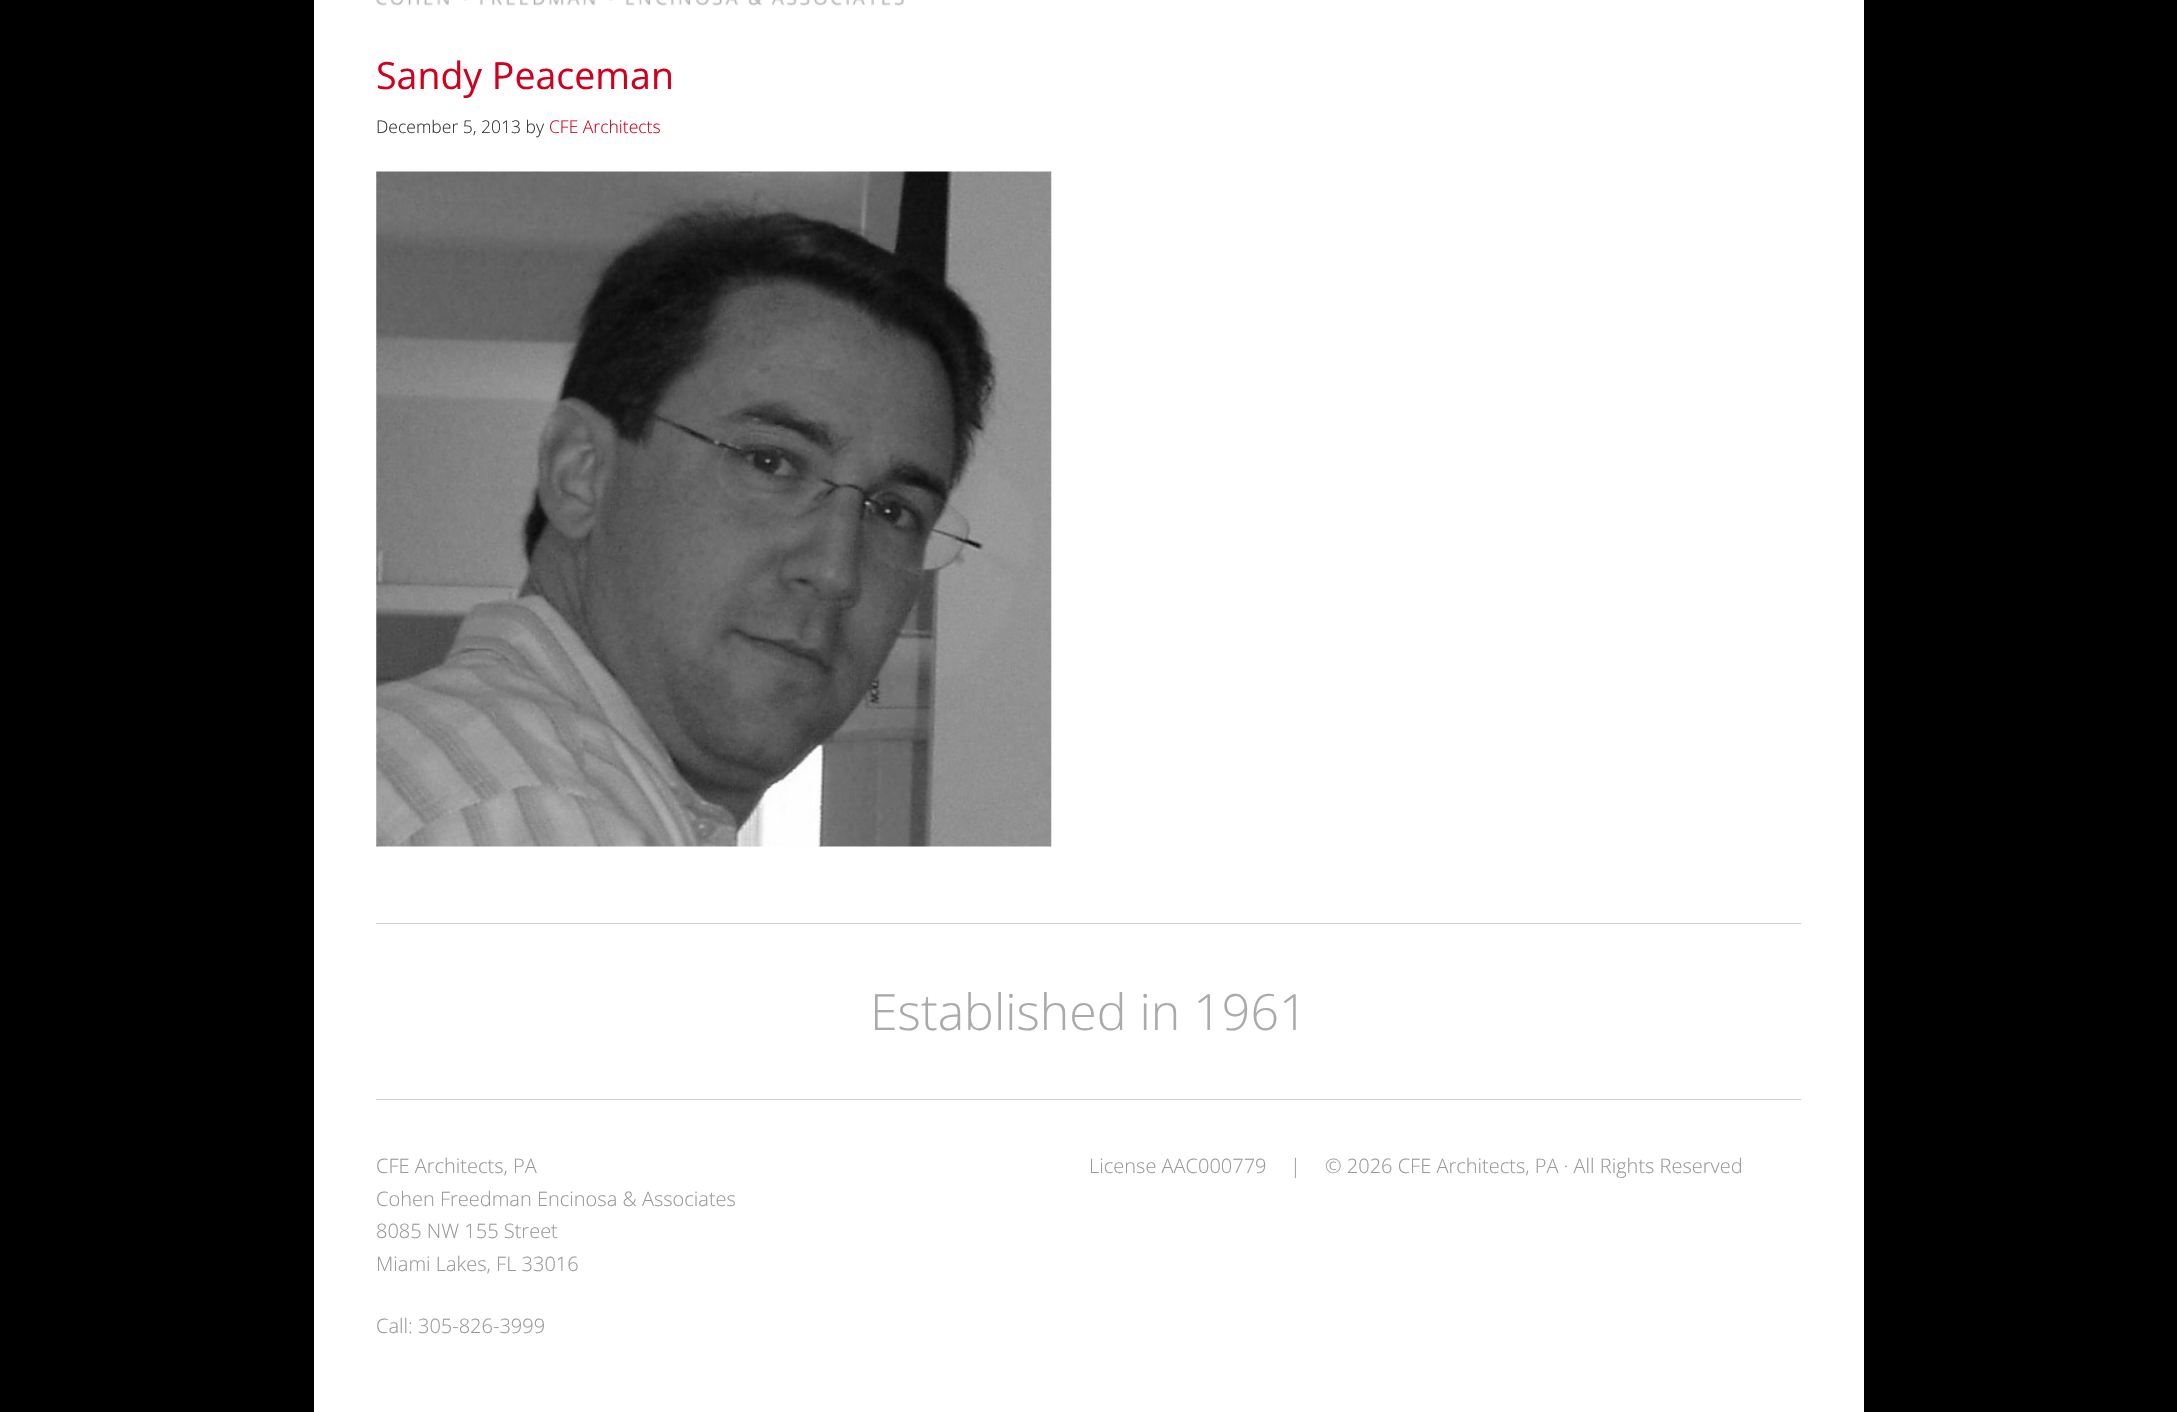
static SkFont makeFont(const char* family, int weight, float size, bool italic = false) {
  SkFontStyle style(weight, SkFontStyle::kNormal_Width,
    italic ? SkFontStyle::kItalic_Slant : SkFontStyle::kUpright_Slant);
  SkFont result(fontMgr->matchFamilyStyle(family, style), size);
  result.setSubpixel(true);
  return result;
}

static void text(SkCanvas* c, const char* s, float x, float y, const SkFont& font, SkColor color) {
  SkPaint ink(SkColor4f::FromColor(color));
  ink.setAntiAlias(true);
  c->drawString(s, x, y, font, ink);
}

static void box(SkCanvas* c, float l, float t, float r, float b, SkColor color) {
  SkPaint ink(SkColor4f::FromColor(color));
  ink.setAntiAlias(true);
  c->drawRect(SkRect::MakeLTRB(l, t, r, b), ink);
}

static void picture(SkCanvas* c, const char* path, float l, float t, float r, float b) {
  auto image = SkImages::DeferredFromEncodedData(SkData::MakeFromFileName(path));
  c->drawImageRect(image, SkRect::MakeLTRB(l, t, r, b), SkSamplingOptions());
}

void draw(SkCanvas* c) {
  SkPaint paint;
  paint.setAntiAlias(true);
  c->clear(0xff000000);
  box(c, 314, 0, 1864, 1412, 0xffffffff);
  picture(c, "img_01.png", 376, 0, 904, 6);
  SkFont face1 = makeFont("Open Sans", 400, 37.5f);
  text(c, "Sandy Peaceman", 376, 89, face1, 0xffd2001f);
  SkFont face2 = makeFont("Open Sans", 300, 17.5f);
  text(c, "December 5, 2013 by", 376, 133, face2, 0xff333333);
  text(c, "CFE Architects", 549, 133, face2, 0xffd2001f);
  picture(c, "img_02.png", 376, 171, 1052, 847);
  box(c, 376, 923, 1801, 924, 0xffcccccc);
  box(c, 376, 1099, 1801, 1100, 0xffcccccc);
  SkFont face3 = makeFont("Open Sans", 300, 50);
  text(c, "Established in 1961", 870, 1030, face3, 0xffaaaaaa);
  SkFont face4 = makeFont("Open Sans", 300, 20);
  text(c, "CFE Architects, PA", 376, 1173, face4, 0xff999999);
  text(c, "Cohen Freedman Encinosa & Associates", 376, 1206, face4, 0xff999999);
  text(c, "8085 NW 155 Street", 376, 1238, face4, 0xff999999);
  text(c, "Miami Lakes, FL 33016", 376, 1271, face4, 0xff999999);
  text(c, "Call: 305-826-3999", 376, 1333, face4, 0xff999999);
  text(c, "License AAC000779", 1089, 1173, face4, 0xff999999);
  text(c, "|", 1290, 1173, face4, 0xff999999);
  text(c, "© 2026 CFE Architects, PA · All Rights Reserved", 1325, 1173, face4, 0xff999999);
}
